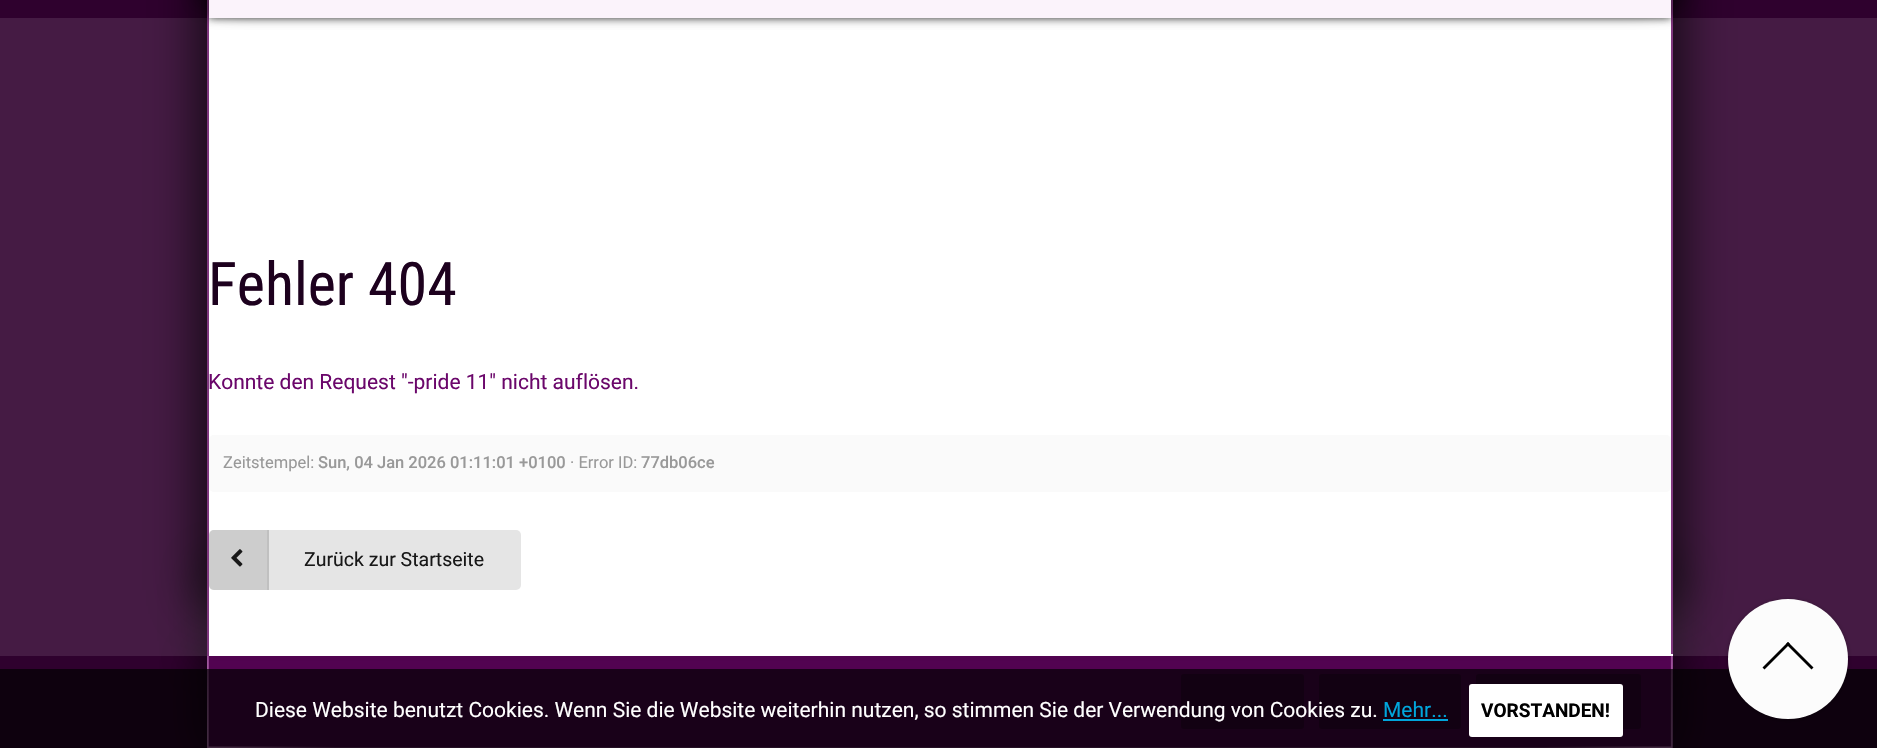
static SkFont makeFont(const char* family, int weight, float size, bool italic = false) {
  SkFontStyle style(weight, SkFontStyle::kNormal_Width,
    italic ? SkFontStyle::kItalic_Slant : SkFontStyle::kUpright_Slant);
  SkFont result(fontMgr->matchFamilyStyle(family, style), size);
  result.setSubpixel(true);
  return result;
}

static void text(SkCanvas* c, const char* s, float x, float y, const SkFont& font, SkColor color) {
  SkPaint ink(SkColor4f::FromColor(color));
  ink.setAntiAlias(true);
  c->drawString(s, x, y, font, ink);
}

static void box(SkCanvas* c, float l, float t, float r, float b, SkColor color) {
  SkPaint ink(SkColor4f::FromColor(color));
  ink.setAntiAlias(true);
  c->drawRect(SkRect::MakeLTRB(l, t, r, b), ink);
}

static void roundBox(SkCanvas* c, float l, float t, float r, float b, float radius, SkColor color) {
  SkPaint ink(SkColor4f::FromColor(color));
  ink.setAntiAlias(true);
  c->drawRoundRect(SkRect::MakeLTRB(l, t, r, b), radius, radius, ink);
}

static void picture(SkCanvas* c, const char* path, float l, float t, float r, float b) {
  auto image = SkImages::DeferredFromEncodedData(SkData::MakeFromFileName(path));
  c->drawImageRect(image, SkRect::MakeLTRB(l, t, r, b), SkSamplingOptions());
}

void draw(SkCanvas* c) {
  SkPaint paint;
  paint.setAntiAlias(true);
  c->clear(0xff2f012e);
  paint.setColor(0xb3000000);
  paint.setMaskFilter(SkMaskFilter::MakeBlur(kNormal_SkBlurStyle, 22.5f));
  c->drawRect(SkRect::MakeLTRB(204, 653, 1676, 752), paint);
  paint.setMaskFilter(nullptr);
  paint.setMaskFilter(SkMaskFilter::MakeBlur(kNormal_SkBlurStyle, 22.5f));
  c->drawRect(SkRect::MakeLTRB(204, 563, 1676, 662), paint);
  paint.setMaskFilter(nullptr);
  box(c, 0, 18, 1877, 656, 0x1affffff);
  box(c, 209, 656, 1671, 747, 0xff520351);
  box(c, 1671, 656, 1673, 748, 0xff7f377e);
  box(c, 207, 747, 1673, 748, 0xff7f377e);
  box(c, 207, 656, 209, 748, 0xff7f377e);
  picture(c, "img_02.png", 207, 656, 334, 748);
  picture(c, "img_03.png", 1547, 656, 1673, 748);
  roundBox(c, 1181, 674, 1304, 729, 3, 0xff3b013a);
  roundBox(c, 1319, 674, 1461, 729, 3, 0xff3b013a);
  roundBox(c, 1476, 674, 1641, 729, 3, 0xff3b013a);
  paint.setMaskFilter(SkMaskFilter::MakeBlur(kNormal_SkBlurStyle, 22.5f));
  c->drawRect(SkRect::MakeLTRB(197, -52, 1683, 606), paint);
  paint.setMaskFilter(nullptr);
  box(c, 209, 18, 1671, 654, 0xffffffff);
  box(c, 1671, 18, 1673, 656, 0xff7f377e);
  box(c, 207, 654, 1673, 656, 0xffffffff);
  box(c, 207, 18, 209, 656, 0xff7f377e);
  paint.setMaskFilter(SkMaskFilter::MakeBlur(kNormal_SkBlurStyle, 11));
  c->drawRect(SkRect::MakeLTRB(230, -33, 1680, 3), paint);
  paint.setMaskFilter(nullptr);
  paint.setMaskFilter(SkMaskFilter::MakeBlur(kNormal_SkBlurStyle, 11));
  c->drawRect(SkRect::MakeLTRB(200, -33, 1650, 3), paint);
  paint.setMaskFilter(nullptr);
  box(c, 1671, 0, 1673, 18, 0xff7f377e);
  box(c, 207, 0, 209, 18, 0xff7f377e);
  paint.setMaskFilter(SkMaskFilter::MakeBlur(kNormal_SkBlurStyle, 4));
  c->drawRect(SkRect::MakeLTRB(209, -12, 1671, 18), paint);
  paint.setMaskFilter(nullptr);
  box(c, 209, 0, 1671, 18, 0xfffbf3fb);
  SkFont face1 = makeFont("Roboto Condensed", 400, 60);
  text(c, "Fehler 404", 208, 305, face1, 0xff1d011e);
  SkFont face2 = makeFont("Roboto", 400, 21);
  text(c, "Konnte den Request \"-pride 11\" nicht auflösen.", 208, 389, face2, 0xff6b076b);
  roundBox(c, 209, 435, 1671, 492, 5, 0xfffafafa);
  SkFont face3 = makeFont("Roboto", 400, 16.5f);
  text(c, "Zeitstempel:", 223, 468, face3, 0xff999999);
  SkFont face4 = makeFont("Roboto", 500, 16.5f);
  text(c, "Sun, 04 Jan 2026 01:11:01 +0100", 318, 468, face4, 0xff999999);
  text(c, "· Error ID:", 570, 468, face3, 0xff999999);
  text(c, "77db06ce", 641, 468, face4, 0xff999999);
  roundBox(c, 209, 530, 521, 590, 5, 0xffe5e5e5);
  paint.setColor(0x1a000000);
  c->drawPath(SkPathBuilder().moveTo(214, 530).lineTo(269, 530).lineTo(269, 590).lineTo(214, 590).cubicTo(211, 590, 209, 588, 209, 585).lineTo(209, 535).cubicTo(209, 532, 211, 530, 214, 530).close().detach(), paint);
  box(c, 267, 530, 269, 590, 0xffc0c0c0);
  picture(c, "img_01.png", 231, 549, 243, 567);
  SkFont face5 = makeFont("Roboto", 400, 19.5f);
  text(c, "Zurück zur Startseite", 304, 566, face5, 0xff181818);
  box(c, 0, 669, 1877, 748, 0xb3000000);
  text(c, "Diese Website benutzt Cookies. Wenn Sie die Website weiterhin nutzen, so stimmen Sie der Verwendung von Cookies zu.", 255, 717, face2, 0xffffffff);
  text(c, "Mehr...", 1383, 717, face2, 0xff00a6dc);
  box(c, 1383, 719, 1448, 721, 0xff00a6dc);
  roundBox(c, 1469, 684, 1623, 737, 3, 0xffffffff);
  SkFont face6 = makeFont("Roboto", 700, 19);
  text(c, "VORSTANDEN!", 1481, 717, face6, 0xff000000);
  paint.setColor(0x4d000000);
  paint.setMaskFilter(SkMaskFilter::MakeBlur(kNormal_SkBlurStyle, 2));
  c->drawRoundRect(SkRect::MakeLTRB(1728, 600, 1848, 720), 60, 60, paint);
  paint.setMaskFilter(nullptr);
  paint.setColor(0xfffcfcfc);
  c->drawCircle(1788, 659, 60, paint);
  paint.setColor(0xff000000);
  c->drawPath(SkPathBuilder().moveTo(1762.5f, 667.5f).lineTo(1788, 642).lineTo(1790, 644).lineTo(1764.5f, 669.5f).close().detach(), paint);
  c->drawPath(SkPathBuilder().moveTo(1786, 644).lineTo(1788, 642).lineTo(1813.5f, 667.5f).lineTo(1811.5f, 669.5f).close().detach(), paint);
}
